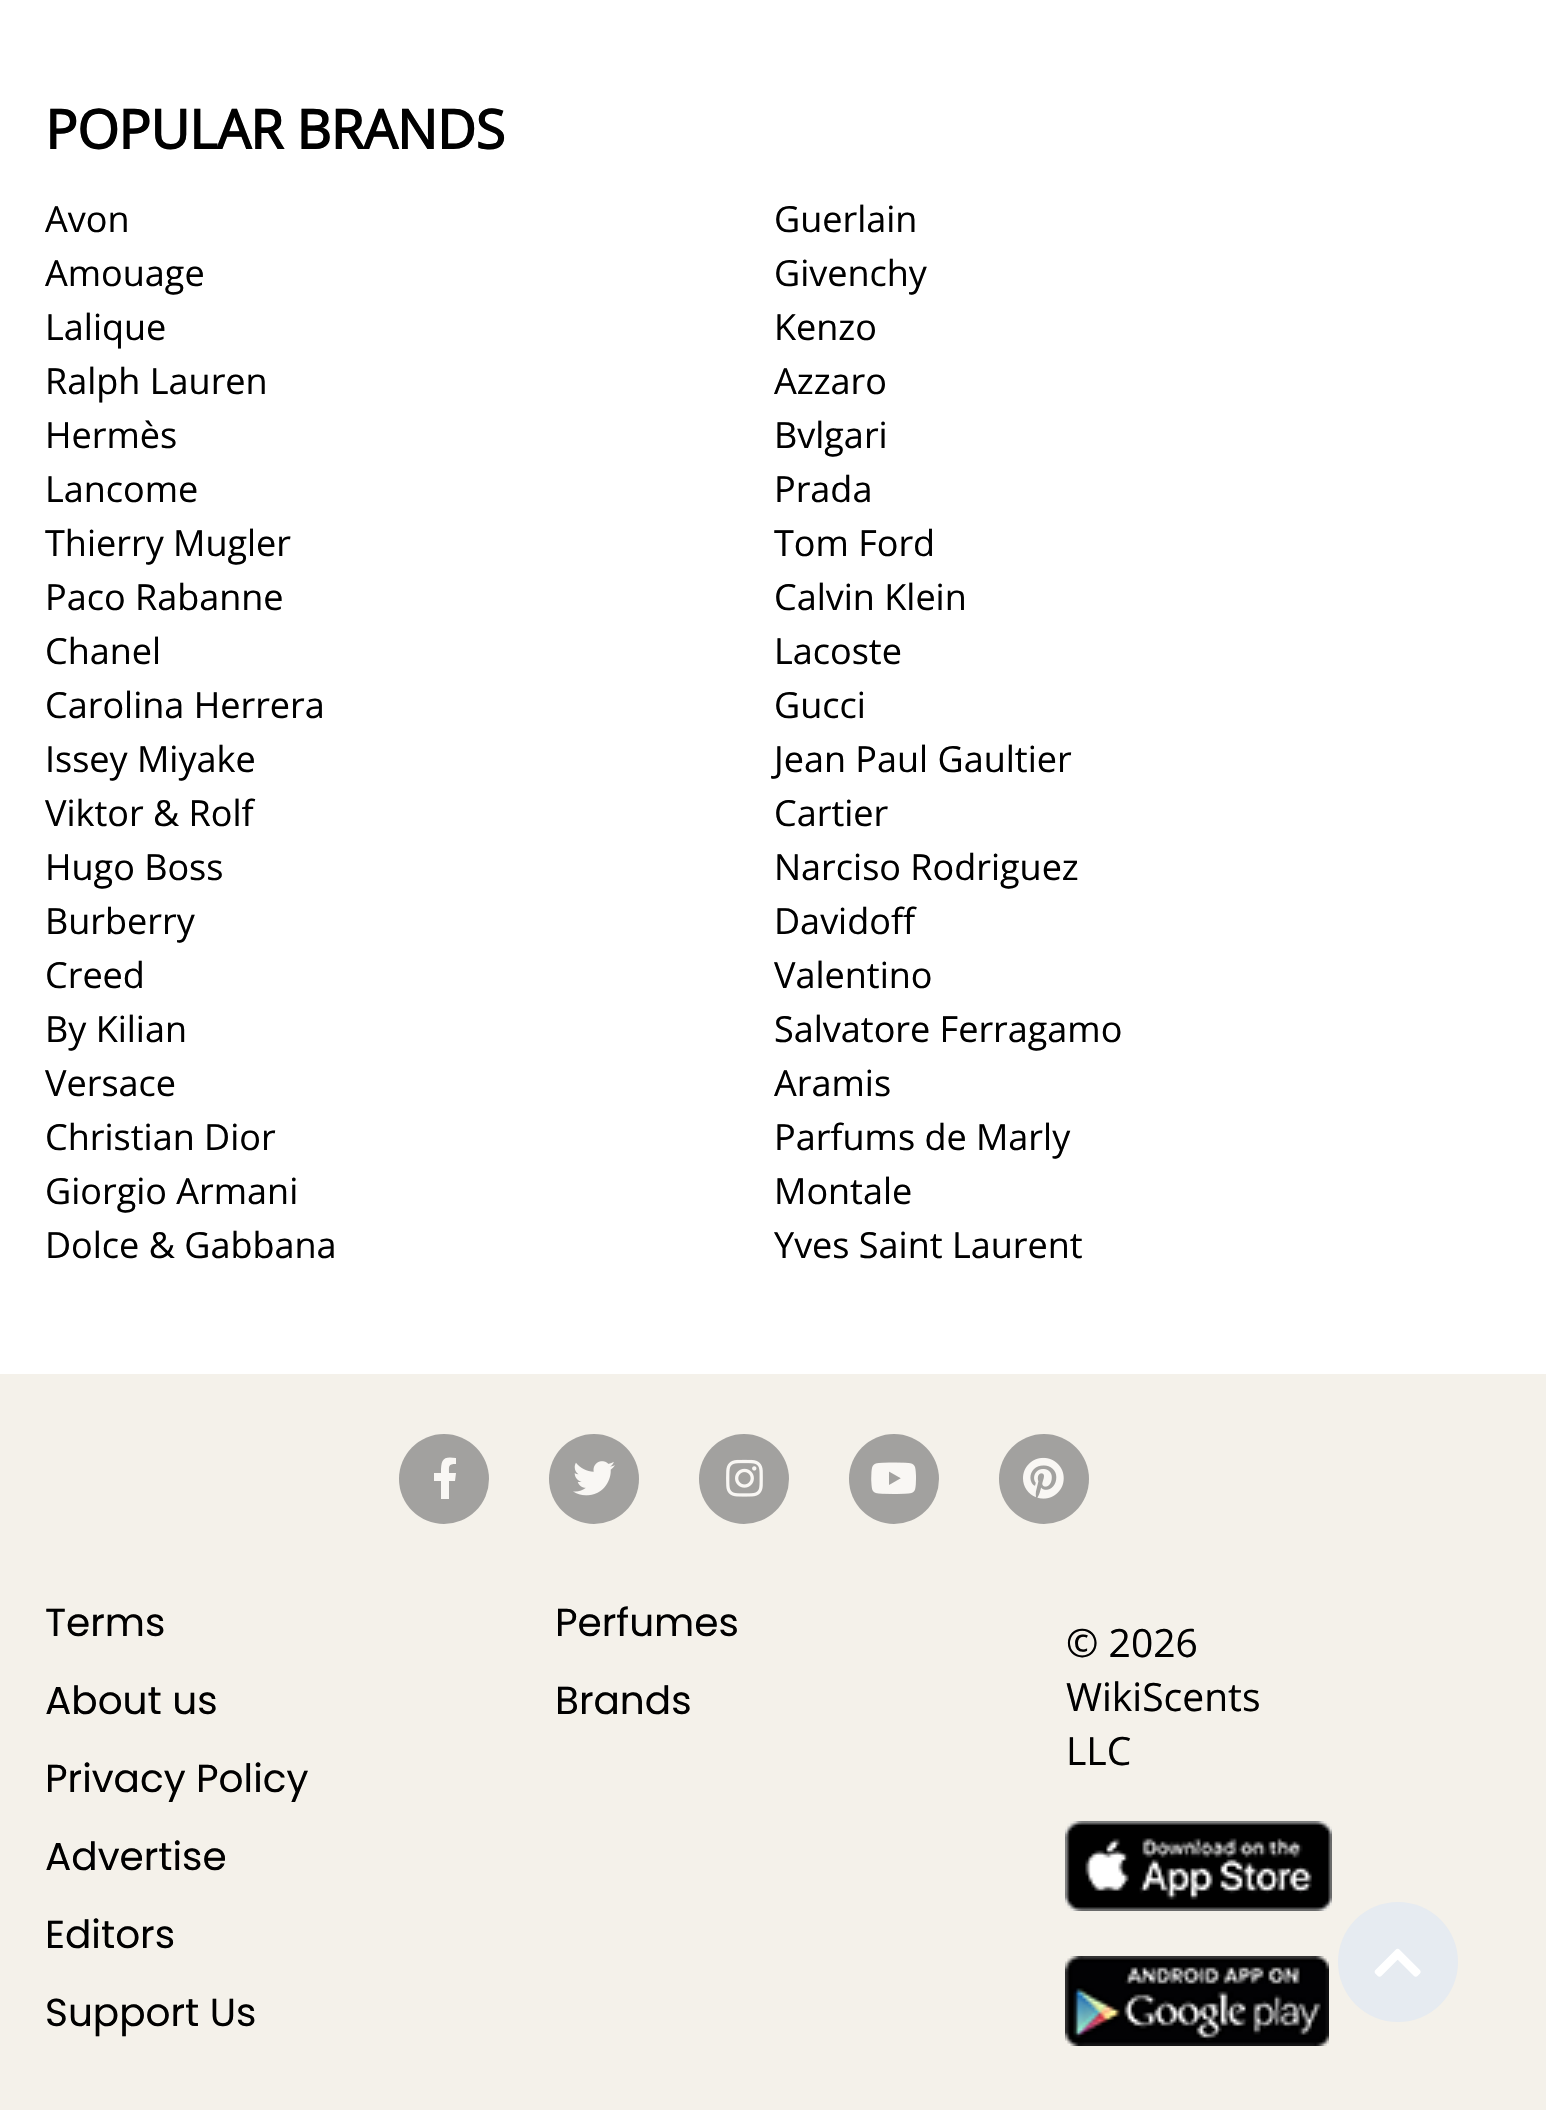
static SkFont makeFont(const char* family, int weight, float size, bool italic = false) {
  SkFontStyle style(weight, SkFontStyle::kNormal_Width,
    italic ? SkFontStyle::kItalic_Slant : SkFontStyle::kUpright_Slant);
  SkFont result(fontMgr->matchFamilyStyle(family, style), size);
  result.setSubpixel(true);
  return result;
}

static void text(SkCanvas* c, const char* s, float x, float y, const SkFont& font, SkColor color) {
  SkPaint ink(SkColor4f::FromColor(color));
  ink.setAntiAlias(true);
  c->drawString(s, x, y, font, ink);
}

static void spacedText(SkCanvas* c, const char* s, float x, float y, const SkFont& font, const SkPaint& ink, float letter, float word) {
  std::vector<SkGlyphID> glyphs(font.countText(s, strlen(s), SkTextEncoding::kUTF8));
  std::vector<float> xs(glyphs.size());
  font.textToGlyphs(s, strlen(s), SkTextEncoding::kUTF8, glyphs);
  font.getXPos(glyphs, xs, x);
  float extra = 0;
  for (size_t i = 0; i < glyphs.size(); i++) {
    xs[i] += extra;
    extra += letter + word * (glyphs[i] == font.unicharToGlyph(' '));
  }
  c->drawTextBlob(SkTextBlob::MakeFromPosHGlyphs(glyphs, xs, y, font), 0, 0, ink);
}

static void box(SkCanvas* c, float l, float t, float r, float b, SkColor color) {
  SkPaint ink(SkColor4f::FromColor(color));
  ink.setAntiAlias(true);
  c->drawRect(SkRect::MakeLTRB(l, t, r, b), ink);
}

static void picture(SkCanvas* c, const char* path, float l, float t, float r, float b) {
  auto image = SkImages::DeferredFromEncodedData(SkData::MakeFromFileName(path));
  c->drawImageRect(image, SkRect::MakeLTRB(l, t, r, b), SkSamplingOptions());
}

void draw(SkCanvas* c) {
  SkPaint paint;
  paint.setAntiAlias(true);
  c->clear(0xffffffff);
  SkFont face1 = makeFont("Open Sans", 700, 54);
  paint.setColor(0xff000000);
  spacedText(c, "POPULAR BRANDS", 45, 149, face1, paint, -0.6f, 0);
  SkFont face2 = makeFont("Open Sans", 400, 36);
  text(c, "Avon", 45, 232, face2, 0xff000000);
  text(c, "Amouage", 45, 286, face2, 0xff000000);
  text(c, "Lalique", 45, 340, face2, 0xff000000);
  text(c, "Ralph Lauren", 45, 394, face2, 0xff000000);
  text(c, "Hermès", 45, 448, face2, 0xff000000);
  text(c, "Lancome", 45, 502, face2, 0xff000000);
  text(c, "Thierry Mugler", 45, 556, face2, 0xff000000);
  text(c, "Paco Rabanne", 45, 610, face2, 0xff000000);
  text(c, "Chanel", 45, 664, face2, 0xff000000);
  text(c, "Carolina Herrera", 45, 718, face2, 0xff000000);
  text(c, "Guerlain", 774, 232, face2, 0xff000000);
  text(c, "Givenchy", 774, 286, face2, 0xff000000);
  text(c, "Kenzo", 774, 340, face2, 0xff000000);
  text(c, "Azzaro", 774, 394, face2, 0xff000000);
  text(c, "Bvlgari", 774, 448, face2, 0xff000000);
  text(c, "Prada", 774, 502, face2, 0xff000000);
  text(c, "Tom Ford", 774, 556, face2, 0xff000000);
  text(c, "Calvin Klein", 774, 610, face2, 0xff000000);
  text(c, "Lacoste", 774, 664, face2, 0xff000000);
  text(c, "Gucci", 774, 718, face2, 0xff000000);
  text(c, "Issey Miyake", 45, 772, face2, 0xff000000);
  text(c, "Viktor & Rolf", 45, 826, face2, 0xff000000);
  text(c, "Hugo Boss", 45, 880, face2, 0xff000000);
  text(c, "Burberry", 45, 934, face2, 0xff000000);
  text(c, "Creed", 45, 988, face2, 0xff000000);
  text(c, "By Kilian", 45, 1042, face2, 0xff000000);
  text(c, "Versace", 45, 1096, face2, 0xff000000);
  text(c, "Christian Dior", 45, 1150, face2, 0xff000000);
  text(c, "Giorgio Armani", 45, 1204, face2, 0xff000000);
  text(c, "Dolce & Gabbana", 45, 1258, face2, 0xff000000);
  text(c, "Jean Paul Gaultier", 774, 772, face2, 0xff000000);
  text(c, "Cartier", 774, 826, face2, 0xff000000);
  text(c, "Narciso Rodriguez", 774, 880, face2, 0xff000000);
  text(c, "Davidoff", 774, 934, face2, 0xff000000);
  text(c, "Valentino", 774, 988, face2, 0xff000000);
  text(c, "Salvatore Ferragamo", 774, 1042, face2, 0xff000000);
  text(c, "Aramis", 774, 1096, face2, 0xff000000);
  text(c, "Parfums de Marly", 774, 1150, face2, 0xff000000);
  text(c, "Montale", 774, 1204, face2, 0xff000000);
  text(c, "Yves Saint Laurent", 774, 1258, face2, 0xff000000);
  box(c, 0, 1374, 1546, 2110, 0xfff4f1ea);
  paint.setColor(0xffa2a19f);
  c->drawCircle(444, 1479, 45, paint);
  paint.setColor(0xfff9f7f4);
  c->drawPath(SkPathBuilder().moveTo(455, 1481).lineTo(449, 1481).lineTo(449, 1499).lineTo(441, 1499).lineTo(441, 1481).lineTo(434, 1481).lineTo(434, 1473).lineTo(441, 1473).cubicTo(441, 1459, 443, 1456, 456, 1458).lineTo(456, 1464).cubicTo(448, 1464, 449, 1466, 449, 1473).lineTo(456, 1473).close().detach(), paint);
  paint.setColor(0xffa2a19f);
  c->drawCircle(594, 1479, 45, paint);
  picture(c, "img_01.png", 573, 1461, 615, 1496);
  c->drawCircle(744, 1479, 45, paint);
  picture(c, "img_02.png", 726, 1459, 763, 1497);
  c->drawCircle(894, 1479, 45, paint);
  picture(c, "img_03.png", 871, 1462, 916, 1494);
  c->drawCircle(1044, 1479, 45, paint);
  picture(c, "img_04.png", 1023, 1457, 1064, 1499);
  SkFont face3 = makeFont("Poppins", 400, 39);
  text(c, "Terms", 45, 1636, face3, 0xff000000);
  text(c, "About us", 45, 1714, face3, 0xff000000);
  text(c, "Privacy Policy", 45, 1792, face3, 0xff000000);
  text(c, "Advertise", 45, 1870, face3, 0xff000000);
  text(c, "Editors", 45, 1948, face3, 0xff000000);
  text(c, "Support Us", 45, 2026, face3, 0xff000000);
  text(c, "Perfumes", 555, 1636, face3, 0xff000000);
  text(c, "Brands", 555, 1714, face3, 0xff000000);
  SkFont face4 = makeFont("Open Sans", 400, 39);
  text(c, "© 2026", 1066, 1657, face4, 0xff000000);
  text(c, "WikiScents", 1066, 1711, face4, 0xff000000);
  text(c, "LLC", 1066, 1765, face4, 0xff000000);
  picture(c, "img_05.png", 1065, 1821, 1332, 1911);
  picture(c, "img_06.png", 1065, 1956, 1329, 2046);
  paint.setColor(0xffe6ebf1);
  c->drawCircle(1398, 1962, 60, paint);
  picture(c, "img_07.png", 1374, 1948, 1421, 1977);
}
